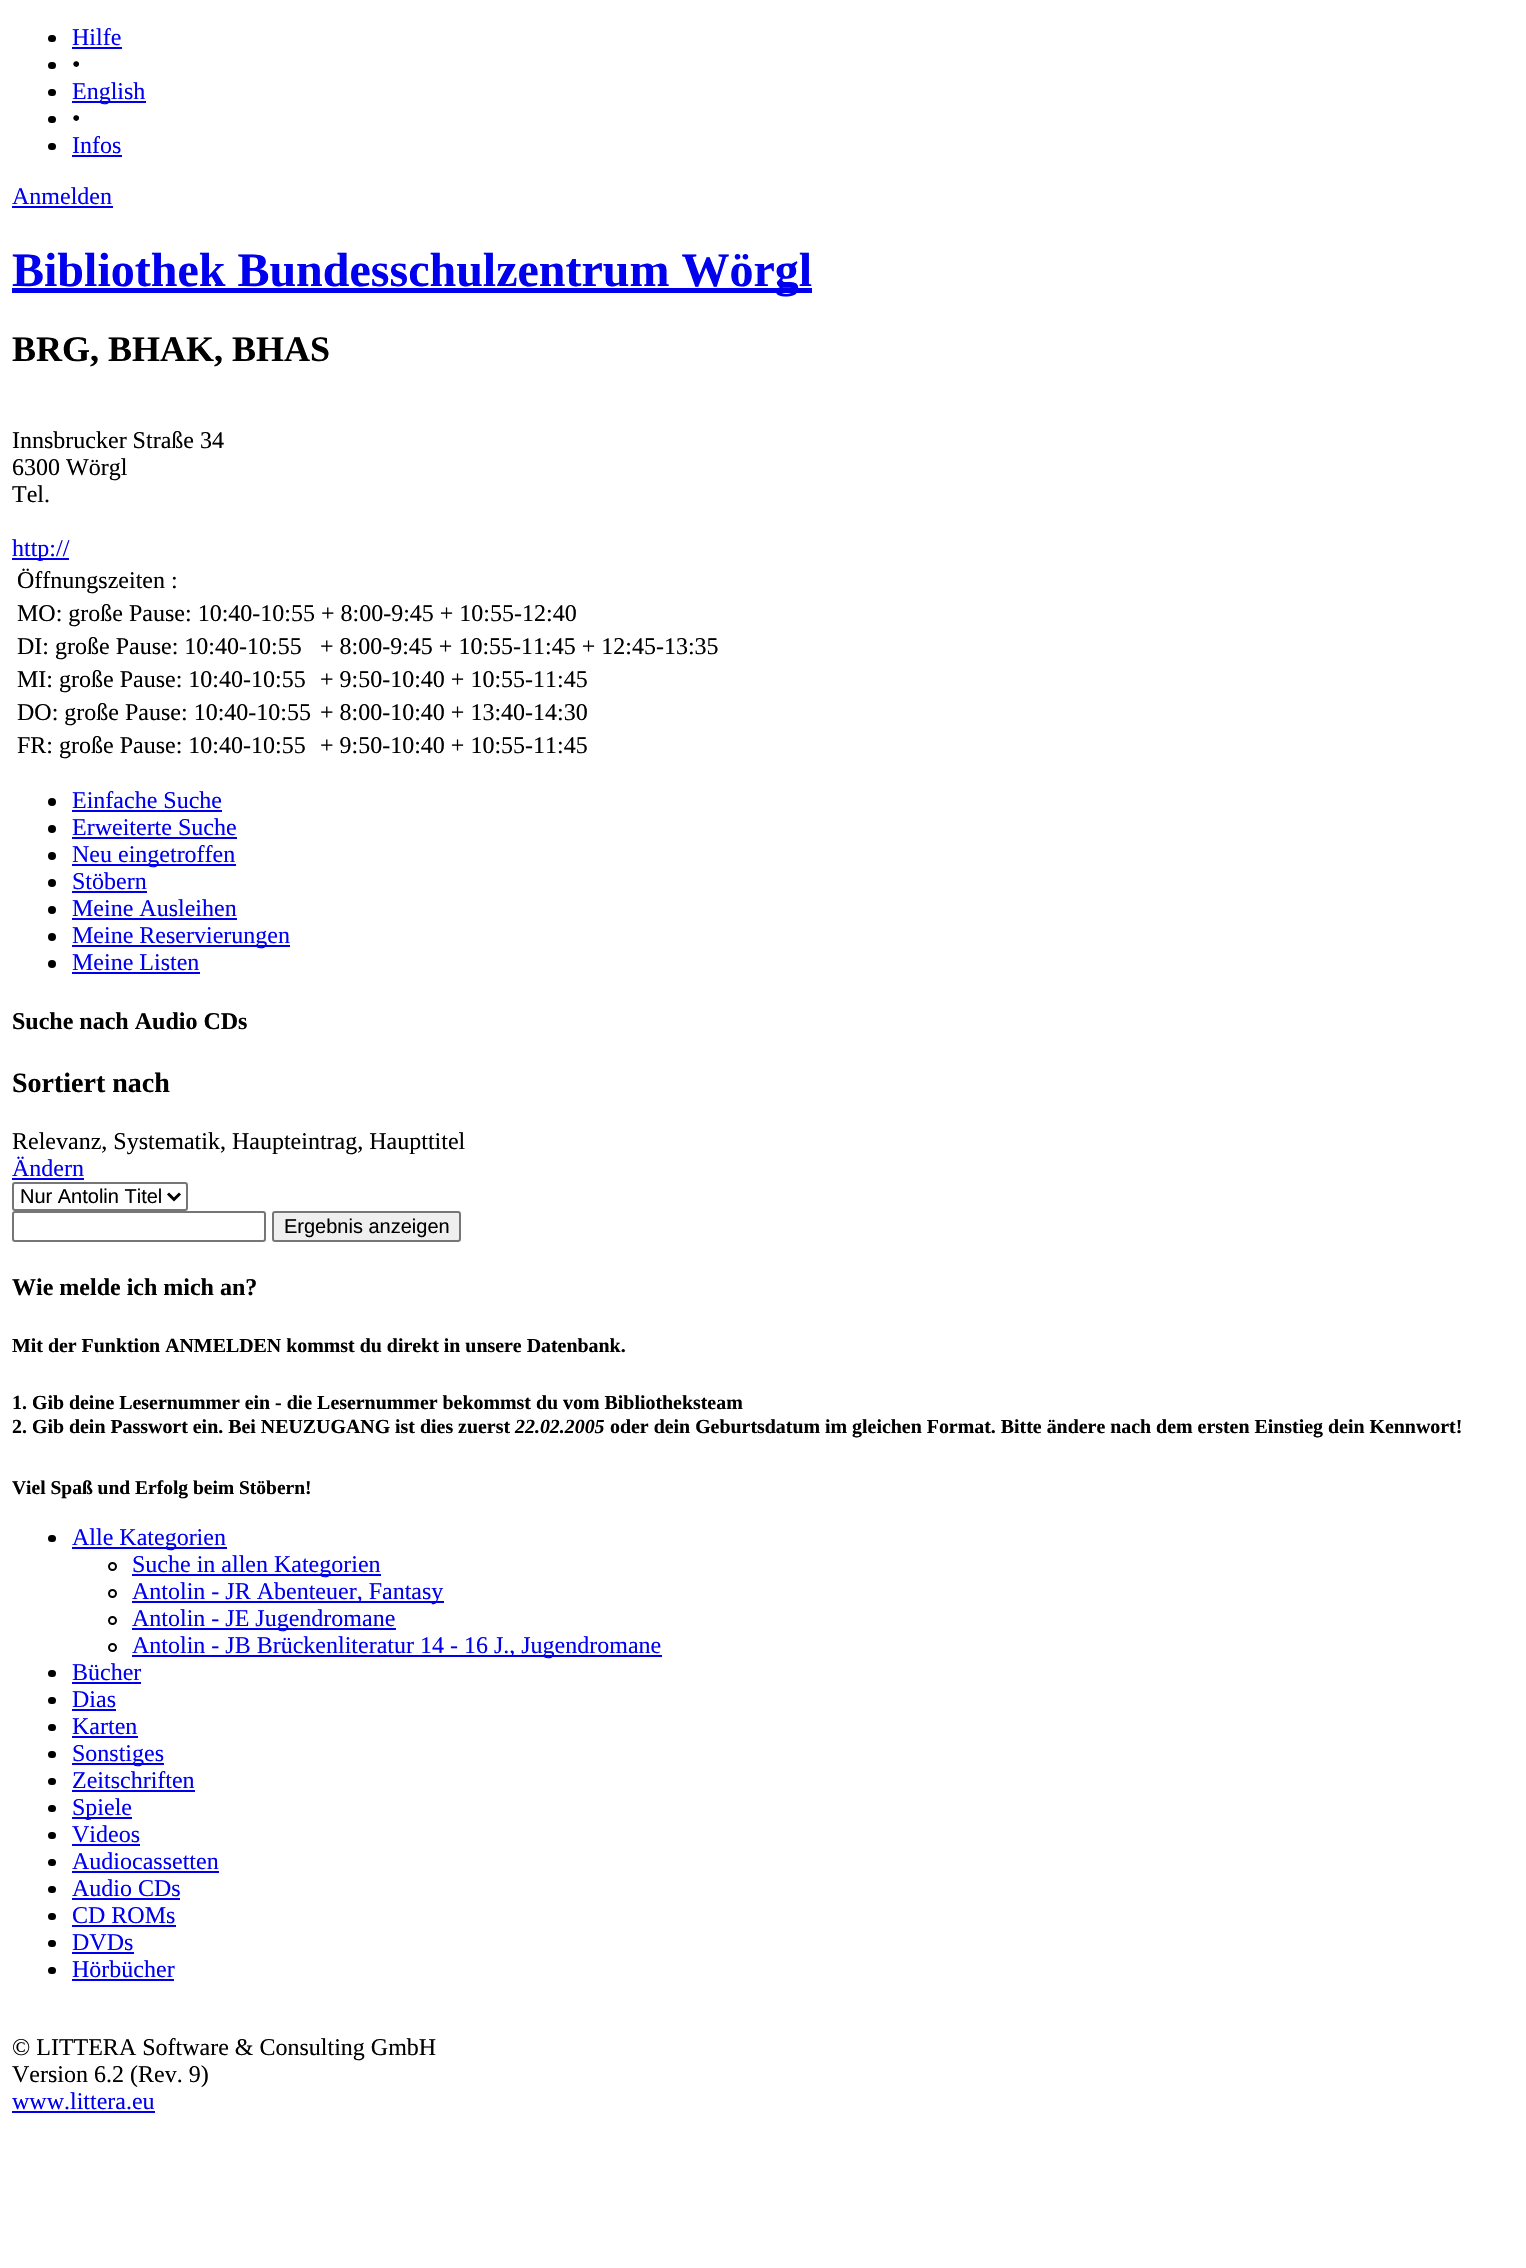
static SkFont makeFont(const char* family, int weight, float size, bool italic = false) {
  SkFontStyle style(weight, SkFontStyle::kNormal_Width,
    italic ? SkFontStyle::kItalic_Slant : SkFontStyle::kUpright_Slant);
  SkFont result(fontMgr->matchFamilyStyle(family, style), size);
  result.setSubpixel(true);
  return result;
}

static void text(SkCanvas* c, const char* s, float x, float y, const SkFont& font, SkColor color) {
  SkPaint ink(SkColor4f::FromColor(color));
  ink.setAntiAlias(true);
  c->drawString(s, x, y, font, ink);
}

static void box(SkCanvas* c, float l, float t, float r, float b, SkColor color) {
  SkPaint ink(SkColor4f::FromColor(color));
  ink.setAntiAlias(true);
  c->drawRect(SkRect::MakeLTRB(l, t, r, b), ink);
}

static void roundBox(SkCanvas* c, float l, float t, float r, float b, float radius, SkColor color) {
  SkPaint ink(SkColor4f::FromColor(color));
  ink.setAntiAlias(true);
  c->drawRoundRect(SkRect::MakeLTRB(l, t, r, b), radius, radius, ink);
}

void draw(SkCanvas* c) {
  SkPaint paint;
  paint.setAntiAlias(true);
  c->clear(0xffffffff);
  roundBox(c, 48, 35, 56, 42, 3.5f, 0xff000000);
  SkFont face1 = makeFont("Liberation Serif", 400, 24);
  text(c, "Hilfe", 72, 45, face1, 0xff0000ee);
  box(c, 72, 47, 122, 49, 0xff0000ee);
  roundBox(c, 48, 62, 56, 69, 3.5f, 0xff000000);
  text(c, "•", 72, 72, face1, 0xff000000);
  roundBox(c, 48, 89, 56, 96, 3.5f, 0xff000000);
  box(c, 72, 101, 146, 103, 0xff0000ee);
  text(c, "English", 72, 99, face1, 0xff0000ee);
  roundBox(c, 48, 116, 56, 123, 3.5f, 0xff000000);
  text(c, "•", 72, 126, face1, 0xff000000);
  roundBox(c, 48, 143, 56, 150, 3.5f, 0xff000000);
  text(c, "Infos", 72, 153, face1, 0xff0000ee);
  box(c, 72, 155, 122, 157, 0xff0000ee);
  text(c, "Anmelden", 12, 204, face1, 0xff0000ee);
  box(c, 12, 206, 113, 208, 0xff0000ee);
  box(c, 12, 288, 812, 293, 0xff0000ee);
  SkFont face2 = makeFont("Liberation Serif", 700, 48);
  text(c, "Bibliothek Bundesschulzentrum Wörgl", 12, 286, face2, 0xff0000ee);
  SkFont face3 = makeFont("Liberation Serif", 700, 36);
  text(c, "BRG, BHAK, BHAS", 12, 361, face3, 0xff000000);
  text(c, "Innsbrucker Straße 34", 12, 448, face1, 0xff000000);
  text(c, "6300 Wörgl", 12, 475, face1, 0xff000000);
  text(c, "Tel.", 12, 502, face1, 0xff000000);
  box(c, 12, 558, 69, 560, 0xff0000ee);
  text(c, "http://", 12, 556, face1, 0xff0000ee);
  text(c, "Öffnungszeiten :", 17, 588, face1, 0xff000000);
  text(c, "MO: große Pause: 10:40-10:55 + 8:00-9:45 + 10:55-12:40", 17, 621, face1, 0xff000000);
  text(c, "DI: große Pause: 10:40-10:55", 17, 654, face1, 0xff000000);
  text(c, "+ 8:00-9:45 + 10:55-11:45 + 12:45-13:35", 320, 654, face1, 0xff000000);
  text(c, "MI: große Pause: 10:40-10:55", 17, 687, face1, 0xff000000);
  text(c, "+ 9:50-10:40 + 10:55-11:45", 320, 687, face1, 0xff000000);
  text(c, "DO: große Pause: 10:40-10:55", 17, 720, face1, 0xff000000);
  text(c, "+ 8:00-10:40 + 13:40-14:30", 320, 720, face1, 0xff000000);
  text(c, "FR: große Pause: 10:40-10:55", 17, 753, face1, 0xff000000);
  text(c, "+ 9:50-10:40 + 10:55-11:45", 320, 753, face1, 0xff000000);
  paint.setColor(0xff000000);
  c->drawCircle(52, 802, 4, paint);
  text(c, "Einfache Suche", 72, 808, face1, 0xff0000ee);
  box(c, 72, 810, 222, 812, 0xff0000ee);
  c->drawCircle(52, 829, 4, paint);
  text(c, "Erweiterte Suche", 72, 835, face1, 0xff0000ee);
  box(c, 72, 837, 237, 839, 0xff0000ee);
  c->drawCircle(52, 856, 4, paint);
  box(c, 72, 864, 236, 866, 0xff0000ee);
  text(c, "Neu eingetroffen", 72, 862, face1, 0xff0000ee);
  c->drawCircle(52, 883, 4, paint);
  text(c, "Stöbern", 72, 889, face1, 0xff0000ee);
  box(c, 72, 891, 147, 893, 0xff0000ee);
  c->drawCircle(52, 910, 4, paint);
  text(c, "Meine Ausleihen", 72, 916, face1, 0xff0000ee);
  box(c, 72, 918, 237, 920, 0xff0000ee);
  c->drawCircle(52, 937, 4, paint);
  box(c, 72, 945, 290, 947, 0xff0000ee);
  text(c, "Meine Reservierungen", 72, 943, face1, 0xff0000ee);
  c->drawCircle(52, 964, 4, paint);
  text(c, "Meine Listen", 72, 970, face1, 0xff0000ee);
  box(c, 72, 972, 200, 974, 0xff0000ee);
  SkFont face4 = makeFont("Liberation Serif", 700, 24);
  text(c, "Suche nach Audio CDs", 12, 1029, face4, 0xff000000);
  SkFont face5 = makeFont("Liberation Serif", 700, 28);
  text(c, "Sortiert nach", 12, 1092, face5, 0xff000000);
  text(c, "Relevanz, Systematik, Haupteintrag, Haupttitel", 12, 1149, face1, 0xff000000);
  text(c, "Ändern", 12, 1176, face1, 0xff0000ee);
  box(c, 12, 1178, 84, 1180, 0xff0000ee);
  paint.setStyle(SkPaint::kStroke_Style);
  paint.setStrokeWidth(2);
  paint.setColor(0xff767676);
  c->drawRoundRect(SkRect::MakeLTRB(13, 1183, 187, 1210), 2, 2, paint);
  paint.setStrokeWidth(3);
  paint.setColor(0xff000000);
  c->drawPath(SkPathBuilder().moveTo(168, 1193.5f).lineTo(174, 1199.5f).lineTo(180, 1193.5f).detach(), paint);
  SkFont face6 = makeFont("Liberation Sans", 400, 20);
  text(c, "Nur Antolin Titel", 20, 1203, face6, 0xff000000);
  paint.setStrokeWidth(2);
  paint.setColor(0xff767676);
  c->drawRoundRect(SkRect::MakeLTRB(13, 1212, 265, 1241), 2, 2, paint);
  paint.setStyle(SkPaint::kFill_Style);
  paint.setColor(0xffefefef);
  c->drawRoundRect(SkRect::MakeLTRB(273, 1212, 460, 1241), 2, 2, paint);
  paint.setStyle(SkPaint::kStroke_Style);
  paint.setColor(0xff767676);
  c->drawRoundRect(SkRect::MakeLTRB(273, 1212, 460, 1241), 2, 2, paint);
  text(c, "Ergebnis anzeigen", 284, 1233, face6, 0xff000000);
  text(c, "Wie melde ich mich an?", 12, 1295, face4, 0xff000000);
  SkFont face7 = makeFont("Liberation Serif", 700, 19.9f);
  text(c, "Mit der Funktion ANMELDEN kommst du direkt in unsere Datenbank.", 12, 1352, face7, 0xff000000);
  text(c, "1. Gib deine Lesernummer ein - die Lesernummer bekommst du vom Bibliotheksteam", 12, 1409, face7, 0xff000000);
  text(c, "2. Gib dein Passwort ein. Bei NEUZUGANG ist dies zuerst", 12, 1433, face7, 0xff000000);
  SkFont face8 = makeFont("Liberation Serif", 700, 19.9f, true);
  text(c, "22.02.2005", 515, 1433, face8, 0xff000000);
  text(c, "oder dein Geburtsdatum im gleichen Format. Bitte ändere nach dem ersten Einstieg dein Kennwort!", 610, 1433, face7, 0xff000000);
  SkFont face9 = makeFont("Liberation Serif", 700, 19.5f);
  text(c, "Viel Spaß und Erfolg beim Stöbern!", 12, 1494, face9, 0xff000000);
  roundBox(c, 48, 1535, 56, 1542, 3.5f, 0xff000000);
  box(c, 72, 1547, 227, 1549, 0xff0000ee);
  text(c, "Alle Kategorien", 72, 1545, face1, 0xff0000ee);
  paint.setColor(0xff000000);
  c->drawCircle(112.5f, 1566.5f, 3.5f, paint);
  box(c, 132, 1574, 381, 1576, 0xff0000ee);
  text(c, "Suche in allen Kategorien", 132, 1572, face1, 0xff0000ee);
  c->drawCircle(112.5f, 1593.5f, 3.5f, paint);
  box(c, 132, 1601, 444, 1603, 0xff0000ee);
  text(c, "Antolin - JR Abenteuer, Fantasy", 132, 1599, face1, 0xff0000ee);
  c->drawCircle(112.5f, 1620.5f, 3.5f, paint);
  box(c, 132, 1628, 396, 1630, 0xff0000ee);
  text(c, "Antolin - JE Jugendromane", 132, 1626, face1, 0xff0000ee);
  c->drawCircle(112.5f, 1647.5f, 3.5f, paint);
  box(c, 132, 1655, 662, 1657, 0xff0000ee);
  text(c, "Antolin - JB Brückenliteratur 14 - 16 J., Jugendromane", 132, 1653, face1, 0xff0000ee);
  roundBox(c, 48, 1670, 56, 1677, 3.5f, 0xff000000);
  text(c, "Bücher", 72, 1680, face1, 0xff0000ee);
  box(c, 72, 1682, 141, 1684, 0xff0000ee);
  roundBox(c, 48, 1697, 56, 1704, 3.5f, 0xff000000);
  text(c, "Dias", 72, 1707, face1, 0xff0000ee);
  box(c, 72, 1709, 116, 1711, 0xff0000ee);
  roundBox(c, 48, 1724, 56, 1731, 3.5f, 0xff000000);
  text(c, "Karten", 72, 1734, face1, 0xff0000ee);
  box(c, 72, 1736, 138, 1738, 0xff0000ee);
  roundBox(c, 48, 1751, 56, 1758, 3.5f, 0xff000000);
  box(c, 72, 1763, 164, 1765, 0xff0000ee);
  text(c, "Sonstiges", 72, 1761, face1, 0xff0000ee);
  roundBox(c, 48, 1778, 56, 1785, 3.5f, 0xff000000);
  text(c, "Zeitschriften", 72, 1788, face1, 0xff0000ee);
  box(c, 72, 1790, 195, 1792, 0xff0000ee);
  roundBox(c, 48, 1805, 56, 1812, 3.5f, 0xff000000);
  box(c, 72, 1817, 132, 1819, 0xff0000ee);
  text(c, "Spiele", 72, 1815, face1, 0xff0000ee);
  roundBox(c, 48, 1832, 56, 1839, 3.5f, 0xff000000);
  text(c, "Videos", 72, 1842, face1, 0xff0000ee);
  box(c, 72, 1844, 140, 1846, 0xff0000ee);
  roundBox(c, 48, 1859, 56, 1866, 3.5f, 0xff000000);
  text(c, "Audiocassetten", 72, 1869, face1, 0xff0000ee);
  box(c, 72, 1871, 219, 1873, 0xff0000ee);
  roundBox(c, 48, 1886, 56, 1893, 3.5f, 0xff000000);
  text(c, "Audio CDs", 72, 1896, face1, 0xff0000ee);
  box(c, 72, 1898, 180, 1900, 0xff0000ee);
  roundBox(c, 48, 1913, 56, 1920, 3.5f, 0xff000000);
  text(c, "CD ROMs", 72, 1923, face1, 0xff0000ee);
  box(c, 72, 1925, 176, 1927, 0xff0000ee);
  roundBox(c, 48, 1940, 56, 1947, 3.5f, 0xff000000);
  text(c, "DVDs", 72, 1950, face1, 0xff0000ee);
  box(c, 72, 1952, 134, 1954, 0xff0000ee);
  roundBox(c, 48, 1967, 56, 1974, 3.5f, 0xff000000);
  text(c, "Hörbücher", 72, 1977, face1, 0xff0000ee);
  box(c, 72, 1979, 174, 1981, 0xff0000ee);
  text(c, "© LITTERA Software & Consulting GmbH", 12, 2055, face1, 0xff000000);
  text(c, "Version 6.2 (Rev. 9)", 12, 2082, face1, 0xff000000);
  text(c, "www.littera.eu", 12, 2109, face1, 0xff0000ee);
  box(c, 12, 2111, 155, 2113, 0xff0000ee);
}
